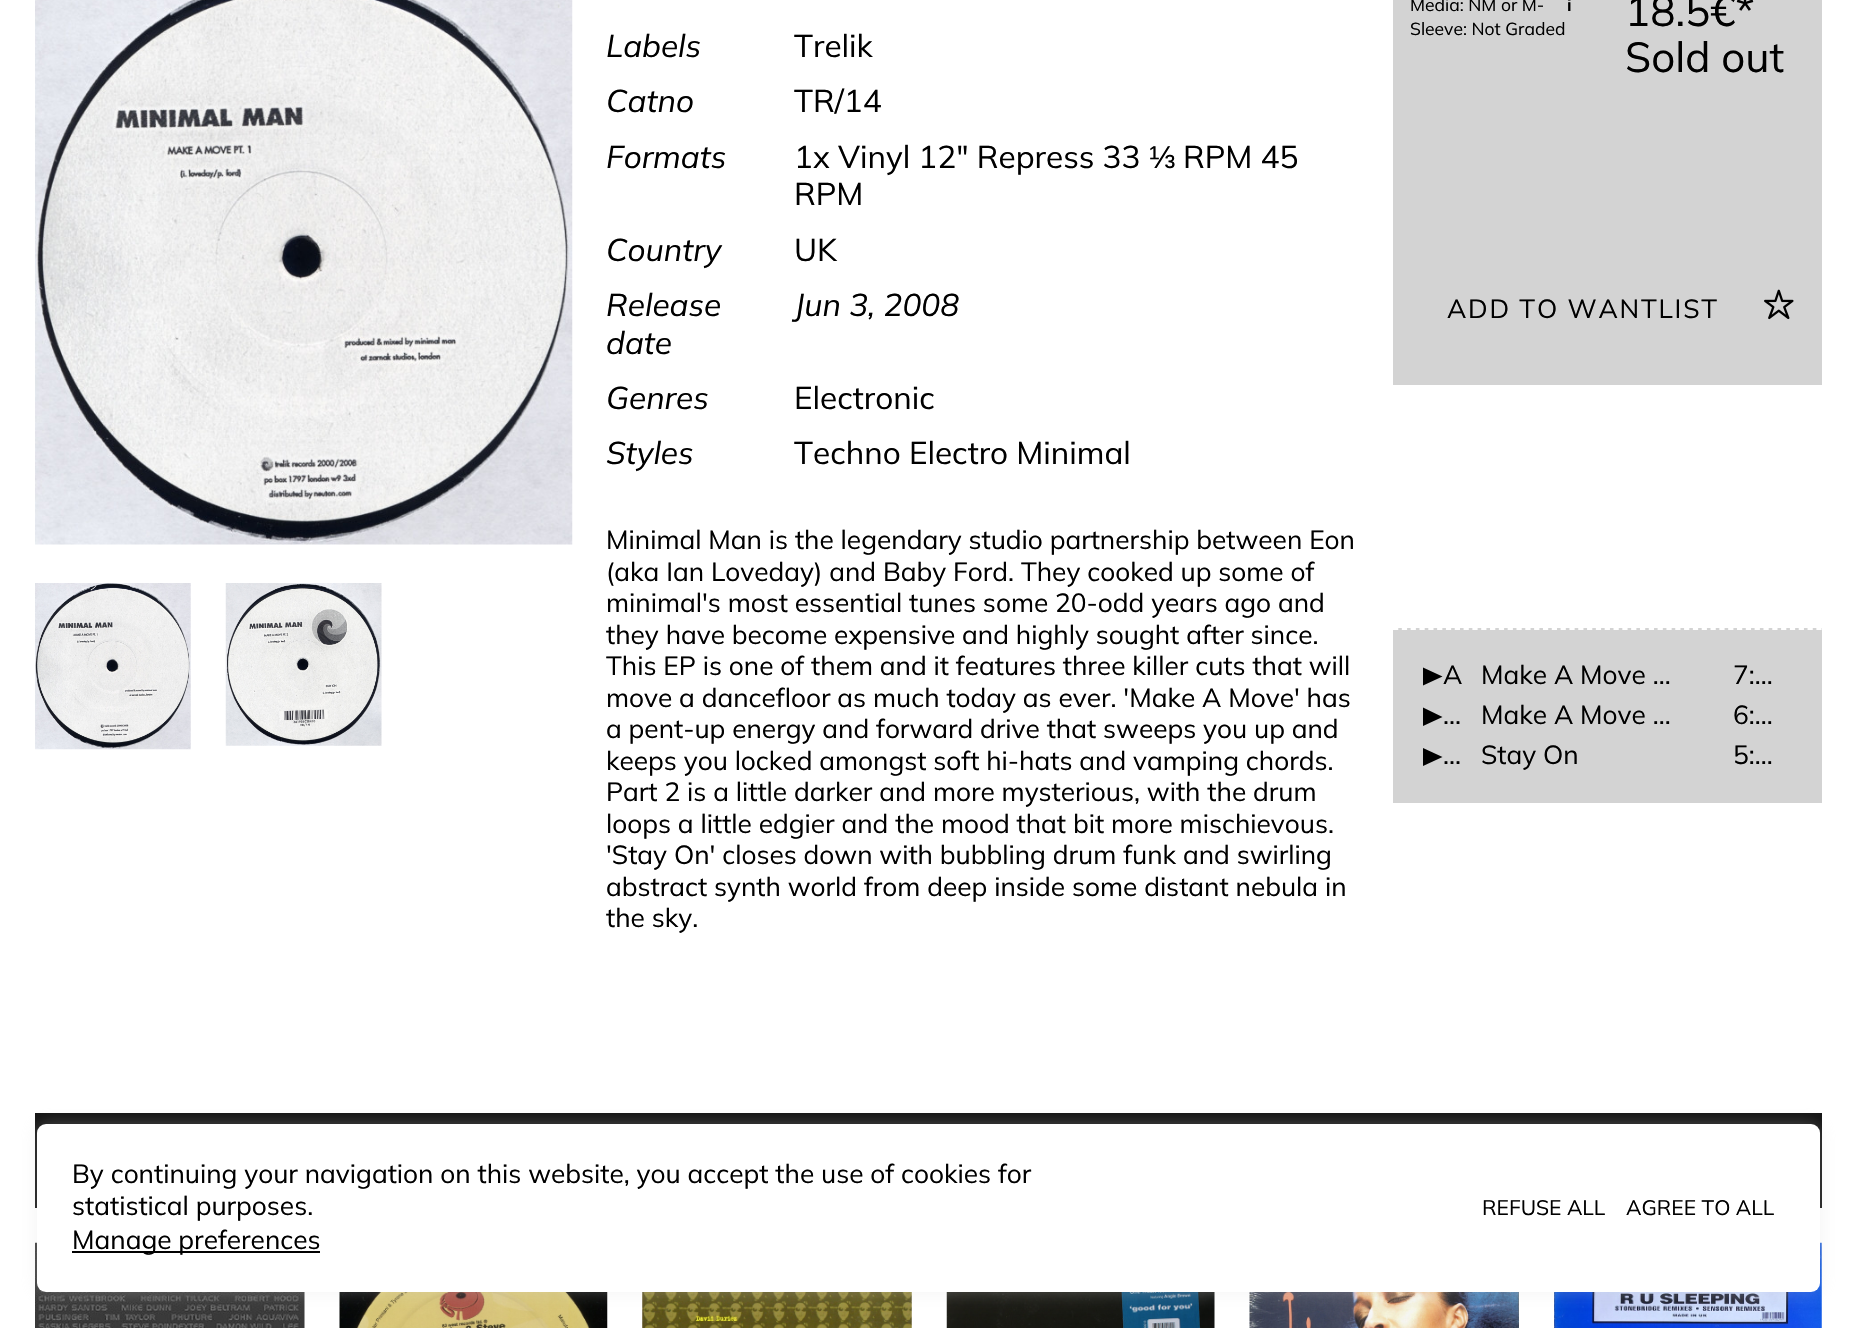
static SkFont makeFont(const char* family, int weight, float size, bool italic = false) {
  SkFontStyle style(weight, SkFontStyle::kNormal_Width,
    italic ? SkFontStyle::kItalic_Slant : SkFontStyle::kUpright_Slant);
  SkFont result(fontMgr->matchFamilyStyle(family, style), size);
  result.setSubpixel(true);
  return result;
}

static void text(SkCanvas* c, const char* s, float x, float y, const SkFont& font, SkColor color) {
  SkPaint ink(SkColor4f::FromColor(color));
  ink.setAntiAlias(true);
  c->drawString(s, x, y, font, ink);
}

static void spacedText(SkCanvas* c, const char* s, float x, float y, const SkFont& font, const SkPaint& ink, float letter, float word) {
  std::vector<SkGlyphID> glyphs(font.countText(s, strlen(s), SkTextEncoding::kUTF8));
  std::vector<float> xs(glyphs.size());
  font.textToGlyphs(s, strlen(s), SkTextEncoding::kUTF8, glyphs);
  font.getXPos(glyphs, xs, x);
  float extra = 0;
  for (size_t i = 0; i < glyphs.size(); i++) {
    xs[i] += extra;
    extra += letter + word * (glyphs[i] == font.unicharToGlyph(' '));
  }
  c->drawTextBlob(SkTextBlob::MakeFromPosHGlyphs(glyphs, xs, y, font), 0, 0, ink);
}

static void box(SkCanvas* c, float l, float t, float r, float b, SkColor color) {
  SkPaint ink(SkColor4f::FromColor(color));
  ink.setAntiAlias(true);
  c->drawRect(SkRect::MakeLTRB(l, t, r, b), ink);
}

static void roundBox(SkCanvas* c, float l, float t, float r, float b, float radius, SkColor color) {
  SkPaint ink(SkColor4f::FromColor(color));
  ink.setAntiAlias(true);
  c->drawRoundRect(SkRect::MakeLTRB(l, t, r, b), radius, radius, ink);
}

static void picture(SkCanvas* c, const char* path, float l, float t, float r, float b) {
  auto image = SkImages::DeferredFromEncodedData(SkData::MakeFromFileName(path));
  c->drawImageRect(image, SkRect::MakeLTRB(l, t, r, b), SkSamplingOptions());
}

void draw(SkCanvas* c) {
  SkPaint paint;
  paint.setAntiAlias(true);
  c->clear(0xffffffff);
  picture(c, "img_01.png", 35, 0, 573, 545);
  picture(c, "img_02.png", 35, 583, 191, 750);
  picture(c, "img_03.png", 225, 583, 382, 746);
  SkFont face1 = makeFont("Mulish", 400, 31.5f, true);
  text(c, "Labels", 606, 57, face1, 0xff000000);
  SkFont face2 = makeFont("Mulish", 400, 31.5f);
  text(c, "Trelik", 794, 57, face2, 0xff000000);
  text(c, "Catno", 606, 112, face1, 0xff000000);
  text(c, "TR/14", 794, 112, face2, 0xff000000);
  text(c, "Formats", 606, 168, face1, 0xff000000);
  text(c, "1x Vinyl 12\" Repress 33", 794, 168, face2, 0xff000000);
  SkFont face3 = makeFont("Liberation Sans", 400, 31.5f);
  text(c, "⅓", 1149, 168, face3, 0xff000000);
  text(c, "RPM 45", 1183, 168, face2, 0xff000000);
  text(c, "RPM", 794, 205, face2, 0xff000000);
  text(c, "Country", 606, 261, face1, 0xff000000);
  text(c, "UK", 794, 261, face2, 0xff000000);
  text(c, "Release", 606, 316, face1, 0xff000000);
  text(c, "date", 606, 354, face1, 0xff000000);
  text(c, "Jun 3, 2008", 794, 316, face1, 0xff000000);
  text(c, "Genres", 606, 409, face1, 0xff000000);
  text(c, "Electronic", 794, 409, face2, 0xff000000);
  text(c, "Styles", 606, 464, face1, 0xff000000);
  text(c, "Techno Electro Minimal", 794, 464, face2, 0xff000000);
  box(c, 1393, 0, 1822, 385, 0xffd3d3d3);
  SkFont face4 = makeFont("Mulish", 400, 17.5f);
  text(c, "Media: NM or M-", 1410, 11, face4, 0xff000000);
  SkFont face5 = makeFont("Mulish", 700, 17.5f);
  text(c, "i", 1567, 11, face5, 0xff000000);
  text(c, "Sleeve: Not Graded", 1410, 35, face4, 0xff000000);
  SkFont face6 = makeFont("Mulish", 400, 42);
  text(c, "18.5€*", 1625, 26, face6, 0xff000000);
  text(c, "Sold out", 1625, 72, face6, 0xff000000);
  SkFont face7 = makeFont("Mulish", 400, 26.25f);
  paint.setColor(0xff000000);
  spacedText(c, "ADD TO WANTLIST", 1447, 318, face7, paint, 1.75f, 0);
  picture(c, "img_04.png", 1764, 289, 1794, 320);
  text(c, "Minimal Man is the legendary studio partnership between Eon", 606, 549, face7, 0xff000000);
  text(c, "(aka Ian Loveday) and Baby Ford. They cooked up some of", 606, 581, face7, 0xff000000);
  text(c, "minimal's most essential tunes some 20-odd years ago and", 606, 612, face7, 0xff000000);
  text(c, "they have become expensive and highly sought after since.", 606, 644, face7, 0xff000000);
  text(c, "This EP is one of them and it features three killer cuts that will", 606, 675, face7, 0xff000000);
  text(c, "move a dancefloor as much today as ever. 'Make A Move' has", 606, 707, face7, 0xff000000);
  text(c, "a pent-up energy and forward drive that sweeps you up and", 606, 738, face7, 0xff000000);
  text(c, "keeps you locked amongst soft hi-hats and vamping chords.", 606, 770, face7, 0xff000000);
  text(c, "Part 2 is a little darker and more mysterious, with the drum", 606, 801, face7, 0xff000000);
  text(c, "loops a little edgier and the mood that bit more mischievous.", 606, 833, face7, 0xff000000);
  text(c, "'Stay On' closes down with bubbling drum funk and swirling", 606, 864, face7, 0xff000000);
  text(c, "abstract synth world from deep inside some distant nebula in", 606, 896, face7, 0xff000000);
  text(c, "the sky.", 606, 927, face7, 0xff000000);
  box(c, 1393, 628, 1822, 803, 0xffd3d3d3);
  paint.setStyle(SkPaint::kStroke_Style);
  paint.setStrokeWidth(1.8f);
  paint.setColor(0xffffffff);
  paint.setPathEffect(SkDashPathEffect::Make({{5.25f, 3.57f}}, 0));
  c->drawPath(SkPathBuilder().moveTo(1393, 629).lineTo(1822, 629).detach(), paint);
  paint.setPathEffect(nullptr);
  paint.setStyle(SkPaint::kFill_Style);
  paint.setColor(0xff000000);
  c->drawPath(SkPathBuilder().moveTo(1423, 685.5f).lineTo(1442.5f, 676.5f).lineTo(1423, 667.5f).close().moveTo(1423, 726).lineTo(1442.5f, 717).lineTo(1423, 707.5f).close().detach(), paint);
  text(c, "A", 1443, 684, face7, 0xff000000);
  text(c, "Make A Move …", 1481, 684, face7, 0xff000000);
  text(c, "7:…", 1733, 684, face7, 0xff000000);
  text(c, "…", 1443, 724, face7, 0xff000000);
  text(c, "Make A Move …", 1481, 724, face7, 0xff000000);
  text(c, "6:…", 1733, 724, face7, 0xff000000);
  c->drawPath(SkPathBuilder().moveTo(1423, 766).lineTo(1442.5f, 757).lineTo(1423, 748).close().detach(), paint);
  text(c, "…", 1443, 764, face7, 0xff000000);
  text(c, "Stay On", 1481, 764, face7, 0xff000000);
  text(c, "5:…", 1733, 764, face7, 0xff000000);
  box(c, 35, 1113, 1822, 1208, 0xff121212);
  picture(c, "img_05.png", 35, 1242, 305, 1328);
  picture(c, "img_06.png", 339, 1292, 608, 1328);
  picture(c, "img_07.png", 642, 1292, 912, 1328);
  picture(c, "img_08.png", 946, 1292, 1215, 1328);
  picture(c, "img_09.png", 1249, 1292, 1519, 1328);
  picture(c, "img_10.png", 1554, 1242, 1822, 1328);
  paint.setColor(0x4dd7d7d7);
  paint.setMaskFilter(SkMaskFilter::MakeBlur(kNormal_SkBlurStyle, 9));
  c->drawRoundRect(SkRect::MakeLTRB(37, 1124, 1820, 1292), 9, 9, paint);
  paint.setMaskFilter(nullptr);
  roundBox(c, 37, 1124, 1820, 1292, 9, 0xffffffff);
  text(c, "By continuing your navigation on this website, you accept the use of cookies for", 72, 1183, face7, 0xff000000);
  text(c, "statistical purposes.", 72, 1215, face7, 0xff000000);
  box(c, 72, 1251, 320, 1253, 0xff000000);
  text(c, "Manage preferences", 72, 1249, face7, 0xff000000);
  SkFont face8 = makeFont("Mulish", 400, 21);
  text(c, "REFUSE ALL", 1482, 1215, face8, 0xff000000);
  text(c, "AGREE TO ALL", 1626, 1215, face8, 0xff000000);
}
